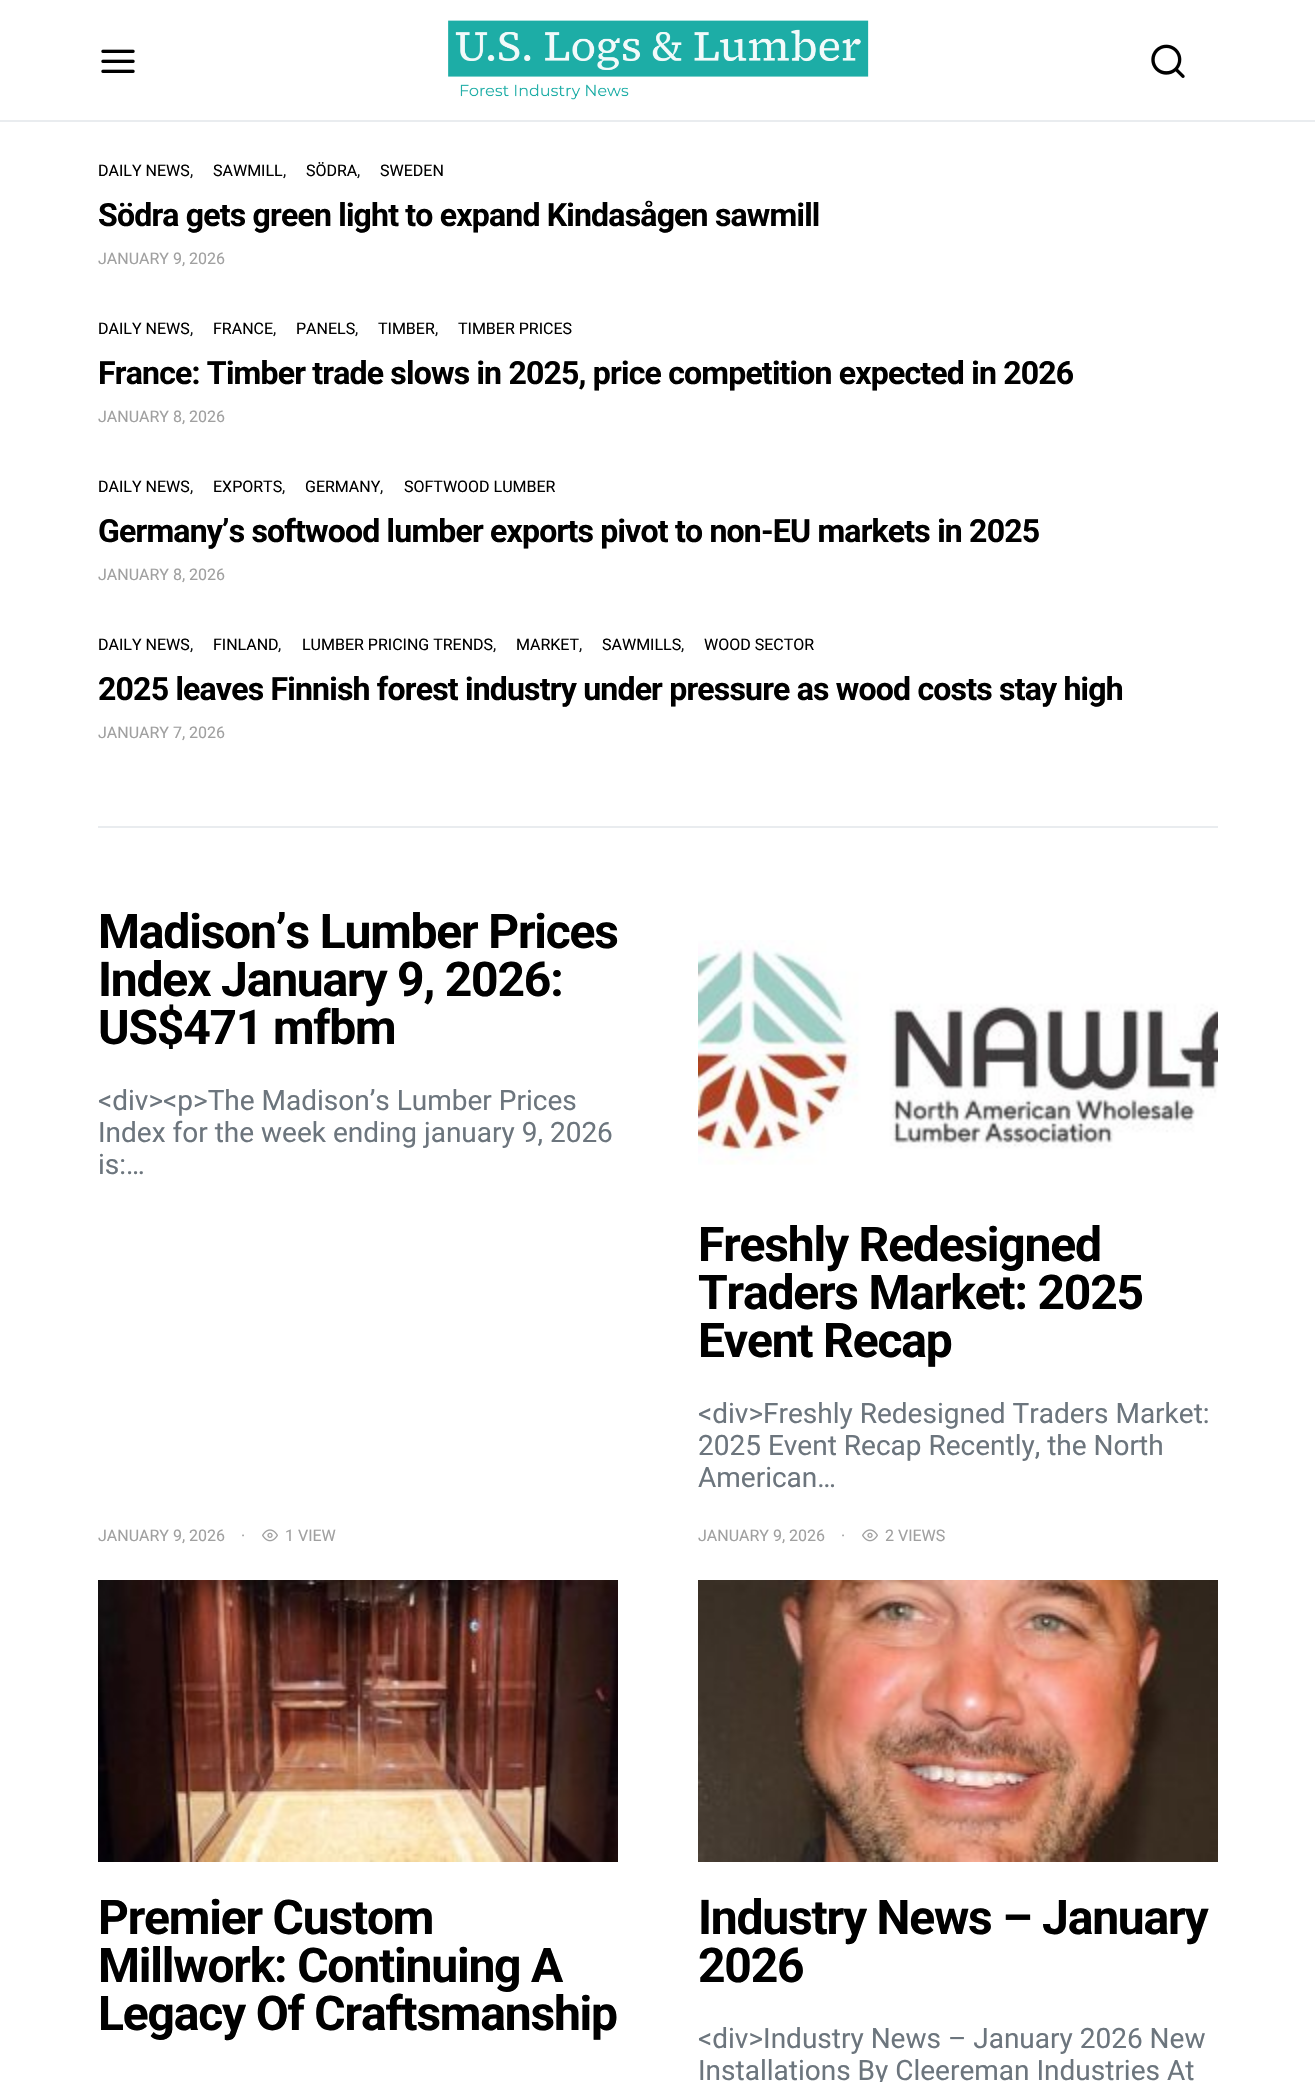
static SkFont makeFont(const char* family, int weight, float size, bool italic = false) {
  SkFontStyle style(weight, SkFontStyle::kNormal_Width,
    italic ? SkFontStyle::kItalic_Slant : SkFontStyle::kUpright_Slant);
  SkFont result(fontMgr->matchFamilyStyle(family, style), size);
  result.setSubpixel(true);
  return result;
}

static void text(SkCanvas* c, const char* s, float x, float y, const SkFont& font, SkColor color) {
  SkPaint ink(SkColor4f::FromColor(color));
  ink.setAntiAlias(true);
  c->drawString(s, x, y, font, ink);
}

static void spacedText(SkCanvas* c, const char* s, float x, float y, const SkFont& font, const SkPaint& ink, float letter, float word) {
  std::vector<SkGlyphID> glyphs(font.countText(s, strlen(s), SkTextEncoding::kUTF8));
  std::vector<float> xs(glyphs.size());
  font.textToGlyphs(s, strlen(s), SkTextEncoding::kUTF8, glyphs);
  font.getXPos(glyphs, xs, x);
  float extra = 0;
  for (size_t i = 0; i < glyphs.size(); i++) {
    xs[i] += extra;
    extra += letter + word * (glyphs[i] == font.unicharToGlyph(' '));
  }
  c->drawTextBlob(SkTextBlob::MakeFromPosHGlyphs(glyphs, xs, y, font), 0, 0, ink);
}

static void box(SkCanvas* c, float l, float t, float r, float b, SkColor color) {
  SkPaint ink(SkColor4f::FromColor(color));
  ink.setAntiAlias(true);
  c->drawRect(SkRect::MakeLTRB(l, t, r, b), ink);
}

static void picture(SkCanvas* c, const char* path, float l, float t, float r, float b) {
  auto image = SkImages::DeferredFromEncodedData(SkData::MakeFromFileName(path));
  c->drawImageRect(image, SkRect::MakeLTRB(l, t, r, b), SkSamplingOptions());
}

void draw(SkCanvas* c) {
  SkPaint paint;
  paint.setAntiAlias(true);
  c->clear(0xffffffff);
  box(c, 0, 120, 1315, 122, 0xffe9ecef);
  picture(c, "img_01.png", 101, 49, 135, 73);
  picture(c, "img_02.png", 448, 20, 869, 100);
  picture(c, "img_03.png", 1151, 44, 1185, 78);
  SkFont face1 = makeFont("Roboto", 400, 16);
  text(c, "DAILY NEWS", 98, 176, face1, 0xff000000);
  text(c, ",", 190, 176, face1, 0xff121416);
  text(c, "SAWMILL", 213, 176, face1, 0xff000000);
  text(c, ",", 283, 176, face1, 0xff121416);
  text(c, "SÖDRA", 306, 176, face1, 0xff000000);
  text(c, ",", 357, 176, face1, 0xff121416);
  text(c, "SWEDEN", 380, 176, face1, 0xff000000);
  SkFont face2 = makeFont("Roboto", 700, 32);
  paint.setColor(0xff000000);
  spacedText(c, "Södra gets green light to expand Kindasågen sawmill", 98, 226, face2, paint, -0.8f, 0);
  text(c, "JANUARY 9, 2026", 98, 264, face1, 0xffa0a0a0);
  text(c, "DAILY NEWS", 98, 334, face1, 0xff000000);
  text(c, ",", 190, 334, face1, 0xff121416);
  text(c, "FRANCE", 213, 334, face1, 0xff000000);
  text(c, ",", 273, 334, face1, 0xff121416);
  text(c, "PANELS", 296, 334, face1, 0xff000000);
  text(c, ",", 355, 334, face1, 0xff121416);
  text(c, "TIMBER", 378, 334, face1, 0xff000000);
  text(c, ",", 435, 334, face1, 0xff121416);
  text(c, "TIMBER PRICES", 458, 334, face1, 0xff000000);
  spacedText(c, "France: Timber trade slows in 2025, price competition expected in 2026", 98, 384, face2, paint, -0.8f, 0);
  text(c, "JANUARY 8, 2026", 98, 422, face1, 0xffa0a0a0);
  text(c, "DAILY NEWS", 98, 492, face1, 0xff000000);
  text(c, ",", 190, 492, face1, 0xff121416);
  text(c, "EXPORTS", 213, 492, face1, 0xff000000);
  text(c, ",", 282, 492, face1, 0xff121416);
  text(c, "GERMANY", 305, 492, face1, 0xff000000);
  text(c, ",", 380, 492, face1, 0xff121416);
  text(c, "SOFTWOOD LUMBER", 404, 492, face1, 0xff000000);
  spacedText(c, "Germany’s softwood lumber exports pivot to non-EU markets in 2025", 98, 542, face2, paint, -0.8f, 0);
  text(c, "JANUARY 8, 2026", 98, 580, face1, 0xffa0a0a0);
  text(c, "DAILY NEWS", 98, 650, face1, 0xff000000);
  text(c, ",", 190, 650, face1, 0xff121416);
  text(c, "FINLAND", 213, 650, face1, 0xff000000);
  text(c, ",", 278, 650, face1, 0xff121416);
  text(c, "LUMBER PRICING TRENDS", 302, 650, face1, 0xff000000);
  text(c, ",", 493, 650, face1, 0xff121416);
  text(c, "MARKET", 516, 650, face1, 0xff000000);
  text(c, ",", 579, 650, face1, 0xff121416);
  text(c, "SAWMILLS", 602, 650, face1, 0xff000000);
  text(c, ",", 681, 650, face1, 0xff121416);
  text(c, "WOOD SECTOR", 704, 650, face1, 0xff000000);
  spacedText(c, "2025 leaves Finnish forest industry under pressure as wood costs stay high", 98, 700, face2, paint, -0.8f, 0);
  text(c, "JANUARY 7, 2026", 98, 738, face1, 0xffa0a0a0);
  box(c, 98, 826, 1218, 828, 0xffe9ecef);
  SkFont face3 = makeFont("Roboto", 700, 48);
  spacedText(c, "Madison’s Lumber Prices", 98, 948, face3, paint, -1.2f, 0);
  spacedText(c, "Index January 9, 2026:", 98, 996, face3, paint, -1.2f, 0);
  spacedText(c, "US$471 mfbm", 98, 1044, face3, paint, -1.2f, 0);
  SkFont face4 = makeFont("Roboto", 400, 28);
  text(c, "<div><p>The Madison’s Lumber Prices", 98, 1110, face4, 0xff6c757d);
  text(c, "Index for the week ending january 9, 2026", 98, 1142, face4, 0xff6c757d);
  text(c, "is:…", 98, 1174, face4, 0xff6c757d);
  text(c, "JANUARY 9, 2026", 98, 1541, face1, 0xffa0a0a0);
  text(c, "·", 241, 1541, face1, 0xffa0a0a0);
  picture(c, "img_04.png", 262, 1529, 278, 1542);
  text(c, "1 VIEW", 285, 1541, face1, 0xffa0a0a0);
  picture(c, "img_05.png", 698, 940, 1218, 1165);
  spacedText(c, "Freshly Redesigned", 698, 1261, face3, paint, -1.2f, 0);
  spacedText(c, "Traders Market: 2025", 698, 1309, face3, paint, -1.2f, 0);
  spacedText(c, "Event Recap", 698, 1357, face3, paint, -1.2f, 0);
  text(c, "<div>Freshly Redesigned Traders Market:", 698, 1423, face4, 0xff6c757d);
  text(c, "2025 Event Recap Recently, the North", 698, 1455, face4, 0xff6c757d);
  text(c, "American…", 698, 1487, face4, 0xff6c757d);
  text(c, "JANUARY 9, 2026", 698, 1541, face1, 0xffa0a0a0);
  text(c, "·", 841, 1541, face1, 0xffa0a0a0);
  picture(c, "img_04.png", 862, 1529, 878, 1542);
  text(c, "2 VIEWS", 885, 1541, face1, 0xffa0a0a0);
  picture(c, "img_06.png", 98, 1580, 618, 1862);
  spacedText(c, "Premier Custom", 98, 1934, face3, paint, -1.2f, 0);
  spacedText(c, "Millwork: Continuing A", 98, 1982, face3, paint, -1.2f, 0);
  spacedText(c, "Legacy Of Craftsmanship", 98, 2030, face3, paint, -1.2f, 0);
  picture(c, "img_07.png", 698, 1580, 1218, 1862);
  spacedText(c, "Industry News – January", 698, 1934, face3, paint, -1.2f, 0);
  spacedText(c, "2026", 698, 1982, face3, paint, -1.2f, 0);
  text(c, "<div>Industry News – January 2026 New", 698, 2048, face4, 0xff6c757d);
  text(c, "Installations By Cleereman Industries At", 698, 2080, face4, 0xff6c757d);
}
